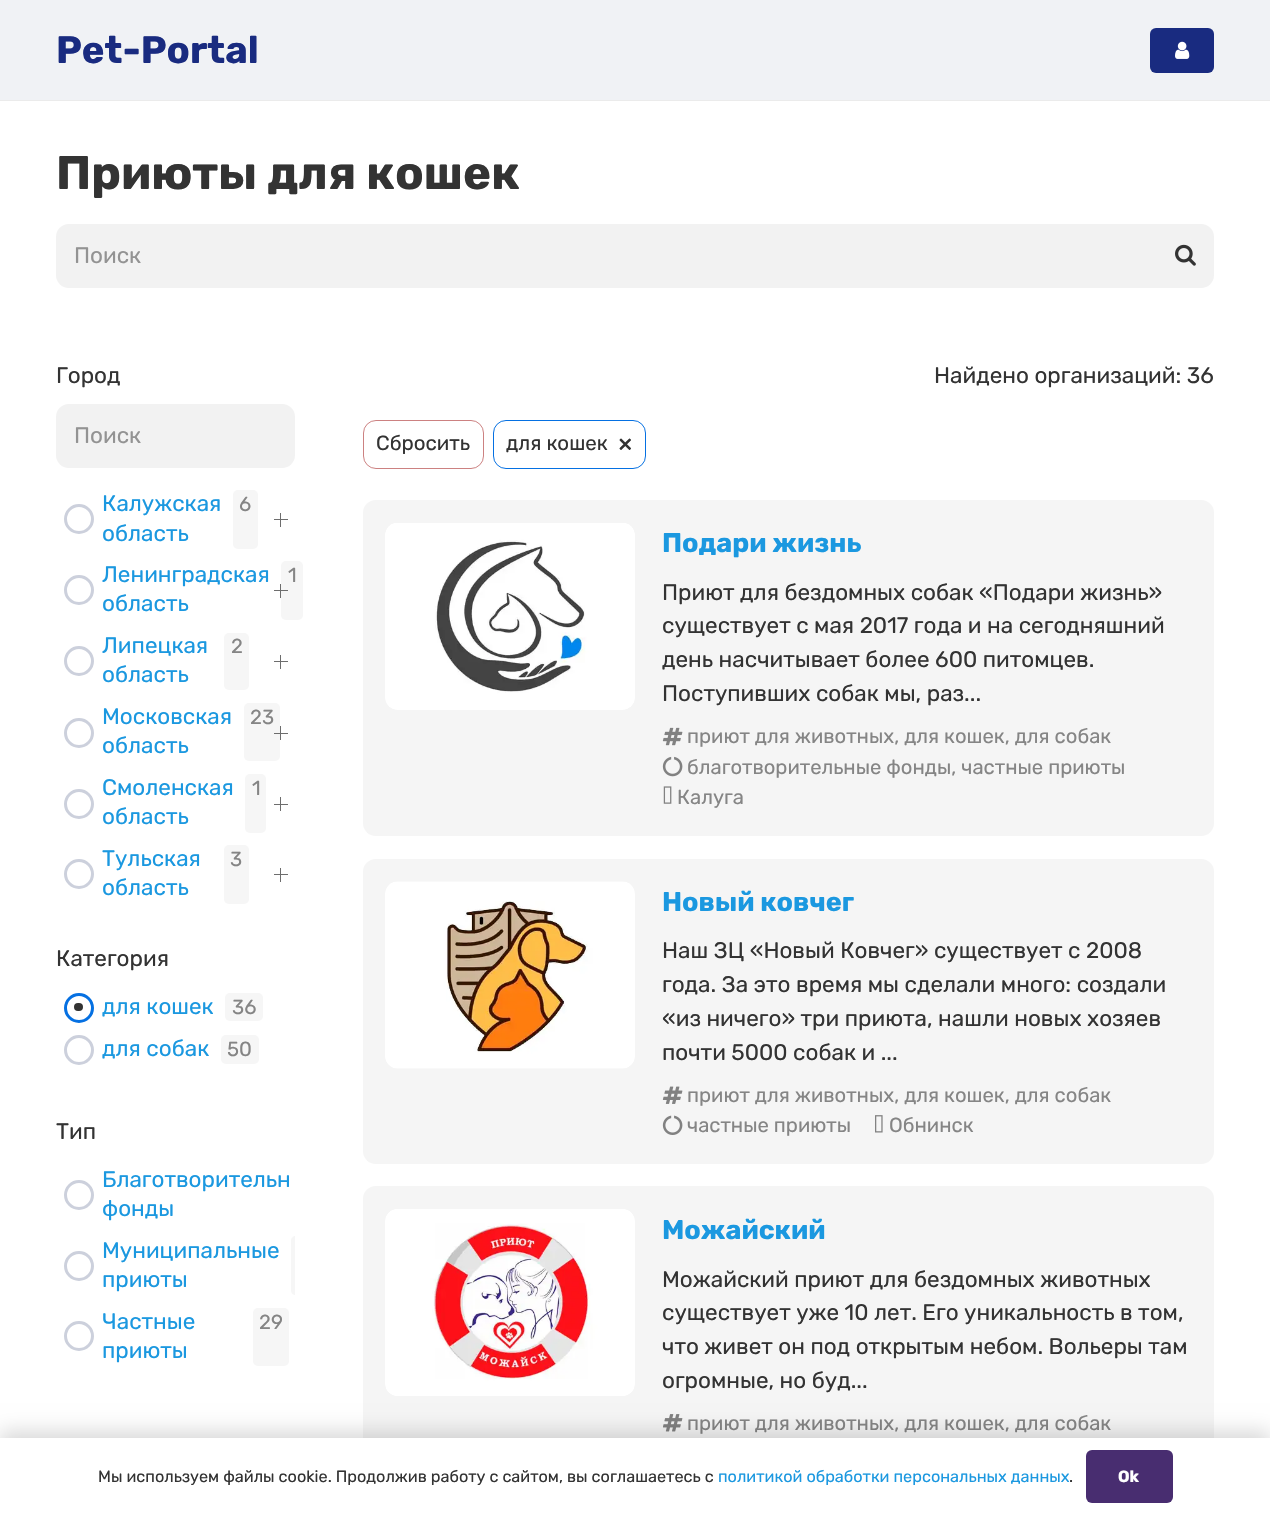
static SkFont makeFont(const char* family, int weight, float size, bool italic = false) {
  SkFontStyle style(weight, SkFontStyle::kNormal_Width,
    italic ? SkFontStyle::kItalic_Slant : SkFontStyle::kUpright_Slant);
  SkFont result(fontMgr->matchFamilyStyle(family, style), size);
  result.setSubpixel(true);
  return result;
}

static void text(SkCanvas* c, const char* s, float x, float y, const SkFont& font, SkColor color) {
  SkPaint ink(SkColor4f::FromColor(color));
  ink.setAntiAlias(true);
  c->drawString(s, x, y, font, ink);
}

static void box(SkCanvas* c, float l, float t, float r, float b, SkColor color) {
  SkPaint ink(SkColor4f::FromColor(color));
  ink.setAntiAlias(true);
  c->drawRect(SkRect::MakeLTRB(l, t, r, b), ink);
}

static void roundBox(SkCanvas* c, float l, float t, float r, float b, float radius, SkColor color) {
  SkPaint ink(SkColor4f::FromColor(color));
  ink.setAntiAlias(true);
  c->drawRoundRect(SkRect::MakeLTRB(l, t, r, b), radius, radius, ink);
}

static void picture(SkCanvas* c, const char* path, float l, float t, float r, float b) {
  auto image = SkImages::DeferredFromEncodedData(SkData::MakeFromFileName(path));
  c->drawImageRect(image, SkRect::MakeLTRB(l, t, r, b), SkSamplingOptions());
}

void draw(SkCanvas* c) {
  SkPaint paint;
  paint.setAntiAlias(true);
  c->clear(0xffffffff);
  box(c, 0, 100, 1270, 101, 0xffebebeb);
  box(c, 0, 0, 1270, 100, 0xfff0f2f5);
  SkFont face1 = makeFont("Rubik", 300, 38.25f);
  text(c, "Pet-Portal", 56, 63, face1, 0xff192b80);
  roundBox(c, 1150, 28, 1214, 73, 6, 0xff192b80);
  picture(c, "img_01.png", 1175, 41, 1190, 59);
  SkFont face2 = makeFont("Rubik", 300, 47.25f);
  text(c, "Приюты для кошек", 56, 189, face2, 0xff333333);
  roundBox(c, 56, 224, 1214, 288, 13, 0xfff2f2f2);
  SkFont face3 = makeFont("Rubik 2", 300, 22.5f);
  text(c, "Поиск", 74, 263, face3, 0xff939393);
  picture(c, "img_02.png", 1175, 244, 1196, 266);
  text(c, "Город", 56, 383, face3, 0xff333333);
  roundBox(c, 56, 404, 295, 468, 13, 0xfff2f2f2);
  text(c, "Поиск", 74, 443, face3, 0xff939393);
  paint.setStyle(SkPaint::kStroke_Style);
  paint.setStrokeWidth(3);
  paint.setColor(0xffccd0dc);
  c->drawCircle(79, 519, 13.5f, paint);
  text(c, "Калужская", 102, 511, face3, 0xff1b98e0);
  text(c, "область", 102, 541, face3, 0xff1b98e0);
  roundBox(c, 233, 490, 258, 549, 5, 0xfff6f6f6);
  SkFont face4 = makeFont("Rubik 2", 300, 20.25f);
  text(c, "6", 239, 511, face4, 0xff858585);
  box(c, 280, 513, 281, 527, 0xff6d6d6d);
  box(c, 274, 519, 288, 520, 0xff6d6d6d);
  c->drawCircle(79, 590, 13.5f, paint);
  text(c, "Ленинградская", 102, 582, face3, 0xff1b98e0);
  text(c, "область", 102, 611, face3, 0xff1b98e0);
  roundBox(c, 281, 561, 303, 620, 5, 0xfff6f6f6);
  text(c, "1", 288, 582, face4, 0xff858585);
  box(c, 280, 584, 281, 598, 0xff6d6d6d);
  box(c, 274, 590, 288, 591, 0xff6d6d6d);
  c->drawCircle(79, 661, 13.5f, paint);
  text(c, "Липецкая", 102, 653, face3, 0xff1b98e0);
  text(c, "область", 102, 682, face3, 0xff1b98e0);
  roundBox(c, 224, 633, 249, 690, 5, 0xfff6f6f6);
  text(c, "2", 231, 653, face4, 0xff858585);
  box(c, 280, 655, 281, 669, 0xff6d6d6d);
  box(c, 274, 661, 288, 662, 0xff6d6d6d);
  c->drawCircle(79, 733, 13.5f, paint);
  text(c, "Московская", 102, 724, face3, 0xff1b98e0);
  text(c, "область", 102, 753, face3, 0xff1b98e0);
  roundBox(c, 244, 703, 280, 761, 5, 0xfff6f6f6);
  text(c, "23", 250, 724, face4, 0xff858585);
  box(c, 280, 726, 281, 740, 0xff6d6d6d);
  box(c, 274, 733, 288, 734, 0xff6d6d6d);
  c->drawCircle(79, 804, 13.5f, paint);
  text(c, "Смоленская", 102, 795, face3, 0xff1b98e0);
  text(c, "область", 102, 824, face3, 0xff1b98e0);
  roundBox(c, 245, 774, 266, 833, 5, 0xfff6f6f6);
  text(c, "1", 252, 795, face4, 0xff858585);
  box(c, 280, 797, 281, 811, 0xff6d6d6d);
  box(c, 274, 804, 288, 805, 0xff6d6d6d);
  c->drawCircle(79, 874, 13.5f, paint);
  text(c, "Тульская", 102, 866, face3, 0xff1b98e0);
  text(c, "область", 102, 895, face3, 0xff1b98e0);
  roundBox(c, 224, 845, 249, 904, 5, 0xfff6f6f6);
  text(c, "3", 230, 866, face4, 0xff858585);
  box(c, 280, 868, 281, 882, 0xff6d6d6d);
  box(c, 274, 874, 288, 875, 0xff6d6d6d);
  text(c, "Категория", 56, 966, face3, 0xff333333);
  paint.setColor(0xff0570e2);
  c->drawCircle(79, 1008, 13.5f, paint);
  roundBox(c, 74, 1003, 83, 1011, 4, 0xff333333);
  text(c, "для кошек", 102, 1014, face3, 0xff1b98e0);
  roundBox(c, 225, 993, 263, 1021, 5, 0xfff6f6f6);
  text(c, "36", 232, 1014, face4, 0xff858585);
  paint.setColor(0xffccd0dc);
  c->drawCircle(79, 1050, 13.5f, paint);
  text(c, "для собак", 102, 1056, face3, 0xff1b98e0);
  roundBox(c, 221, 1035, 259, 1064, 5, 0xfff6f6f6);
  text(c, "50", 227, 1056, face4, 0xff858585);
  text(c, "Тип", 56, 1139, face3, 0xff333333);
  c->drawCircle(79, 1195, 13.5f, paint);
  text(c, "Благотворительн", 102, 1187, face3, 0xff1b98e0);
  text(c, "фонды", 102, 1216, face3, 0xff1b98e0);
  c->drawCircle(79, 1266, 13.5f, paint);
  text(c, "Муниципальные", 102, 1258, face3, 0xff1b98e0);
  text(c, "приюты", 102, 1287, face3, 0xff1b98e0);
  paint.setStyle(SkPaint::kFill_Style);
  paint.setColor(0xfff6f6f6);
  c->drawPath(SkPathBuilder().moveTo(296, 1236).lineTo(295, 1236).lineTo(295, 1295).lineTo(296, 1295).cubicTo(293, 1295, 291, 1293, 291, 1290).lineTo(291, 1241).cubicTo(291, 1238, 293, 1236, 296, 1236).close().detach(), paint);
  paint.setStyle(SkPaint::kStroke_Style);
  paint.setColor(0xffccd0dc);
  c->drawCircle(79, 1336, 13.5f, paint);
  text(c, "Частные", 102, 1329, face3, 0xff1b98e0);
  text(c, "приюты", 102, 1358, face3, 0xff1b98e0);
  roundBox(c, 253, 1308, 289, 1366, 5, 0xfff6f6f6);
  text(c, "29", 259, 1329, face4, 0xff858585);
  text(c, "Найдено организаций: 36", 934, 383, face3, 0xff333333);
  paint.setStrokeWidth(1);
  paint.setColor(0xffcc8181);
  c->drawRoundRect(SkRect::MakeLTRB(363.5f, 420.5f, 483.5f, 468.5f), 12.5f, 12.5f, paint);
  SkFont face5 = makeFont("Rubik 2", 300, 20.5f);
  text(c, "Сбросить", 376, 450, face5, 0xff333333);
  paint.setColor(0xff0570e2);
  c->drawRoundRect(SkRect::MakeLTRB(493.5f, 420.5f, 645.5f, 468.5f), 12.5f, 12.5f, paint);
  text(c, "для кошек", 506, 450, face5, 0xff333333);
  SkFont face6 = makeFont("Rubik 2", 300, 26);
  text(c, "×", 618, 452, face6, 0xff333333);
  roundBox(c, 363, 500, 1214, 836, 13, 0xfff5f5f5);
  picture(c, "img_03.png", 385, 523, 635, 710);
  SkFont face7 = makeFont("Rubik", 300, 27);
  text(c, "Подари жизнь", 662, 552, face7, 0xff1b98e0);
  text(c, "Приют для бездомных собак «Подари жизнь»", 662, 600, face3, 0xff333333);
  text(c, "существует с мая 2017 года и на сегодняшний", 662, 633, face3, 0xff333333);
  text(c, "день насчитывает более 600 питомцев.", 662, 667, face3, 0xff333333);
  text(c, "Поступивших собак мы, раз...", 662, 701, face3, 0xff333333);
  picture(c, "img_04.png", 662, 727, 683, 746);
  text(c, "приют для животных, для кошек, для собак", 687, 743, face4, 0xff858585);
  picture(c, "img_05.png", 662, 756, 683, 777);
  text(c, "благотворительные фонды, частные приюты", 687, 774, face4, 0xff858585);
  picture(c, "img_06.png", 663, 786, 672, 804);
  text(c, "Калуга", 677, 804, face4, 0xff858585);
  roundBox(c, 363, 859, 1214, 1164, 13, 0xfff5f5f5);
  picture(c, "img_07.png", 385, 881, 635, 1069);
  text(c, "Новый ковчег", 662, 911, face7, 0xff1b98e0);
  text(c, "Наш ЗЦ «Новый Ковчег» существует с 2008", 662, 958, face3, 0xff333333);
  text(c, "года. За это время мы сделали много: создали", 662, 992, face3, 0xff333333);
  text(c, "«из ничего» три приюта, нашли новых хозяев", 662, 1026, face3, 0xff333333);
  text(c, "почти 5000 собак и ...", 662, 1060, face3, 0xff333333);
  picture(c, "img_08.png", 662, 1086, 683, 1104);
  text(c, "приют для животных, для кошек, для собак", 687, 1102, face4, 0xff858585);
  picture(c, "img_09.png", 662, 1115, 683, 1135);
  text(c, "частные приюты", 687, 1132, face4, 0xff858585);
  picture(c, "img_10.png", 875, 1115, 883, 1133);
  text(c, "Обнинск", 889, 1132, face4, 0xff858585);
  roundBox(c, 363, 1186, 1214, 1493, 13, 0xfff5f5f5);
  picture(c, "img_11.png", 385, 1209, 635, 1396);
  text(c, "Можайский", 662, 1239, face7, 0xff1b98e0);
  text(c, "Можайский приют для бездомных животных", 662, 1287, face3, 0xff333333);
  text(c, "существует уже 10 лет. Его уникальность в том,", 662, 1320, face3, 0xff333333);
  text(c, "что живет он под открытым небом. Вольеры там", 662, 1354, face3, 0xff333333);
  text(c, "огромные, но буд...", 662, 1388, face3, 0xff333333);
  picture(c, "img_12.png", 663, 1414, 683, 1432);
  text(c, "приют для животных, для кошек, для собак", 687, 1430, face4, 0xff858585);
  paint.setStyle(SkPaint::kFill_Style);
  paint.setColor(0x26000000);
  paint.setMaskFilter(SkMaskFilter::MakeBlur(kNormal_SkBlurStyle, 9.5f));
  c->drawRect(SkRect::MakeLTRB(0, 1431, 1270, 1509), paint);
  paint.setMaskFilter(nullptr);
  box(c, 0, 1438, 1270, 1514, 0xffffffff);
  SkFont face8 = makeFont("Rubik 2", 300, 16.25f);
  text(c, "Мы используем файлы cookie. Продолжив работу с сайтом, вы соглашаетесь с", 98, 1482, face8, 0xff333333);
  text(c, "политикой обработки персональных данных", 718, 1482, face8, 0xff1b98e0);
  text(c, ".", 1069, 1482, face8, 0xff333333);
  roundBox(c, 1086, 1450, 1173, 1503, 6, 0xff482d70);
  SkFont face9 = makeFont("Rubik", 300, 16.25f);
  text(c, "Ok", 1118, 1482, face9, 0xffffffff);
}
